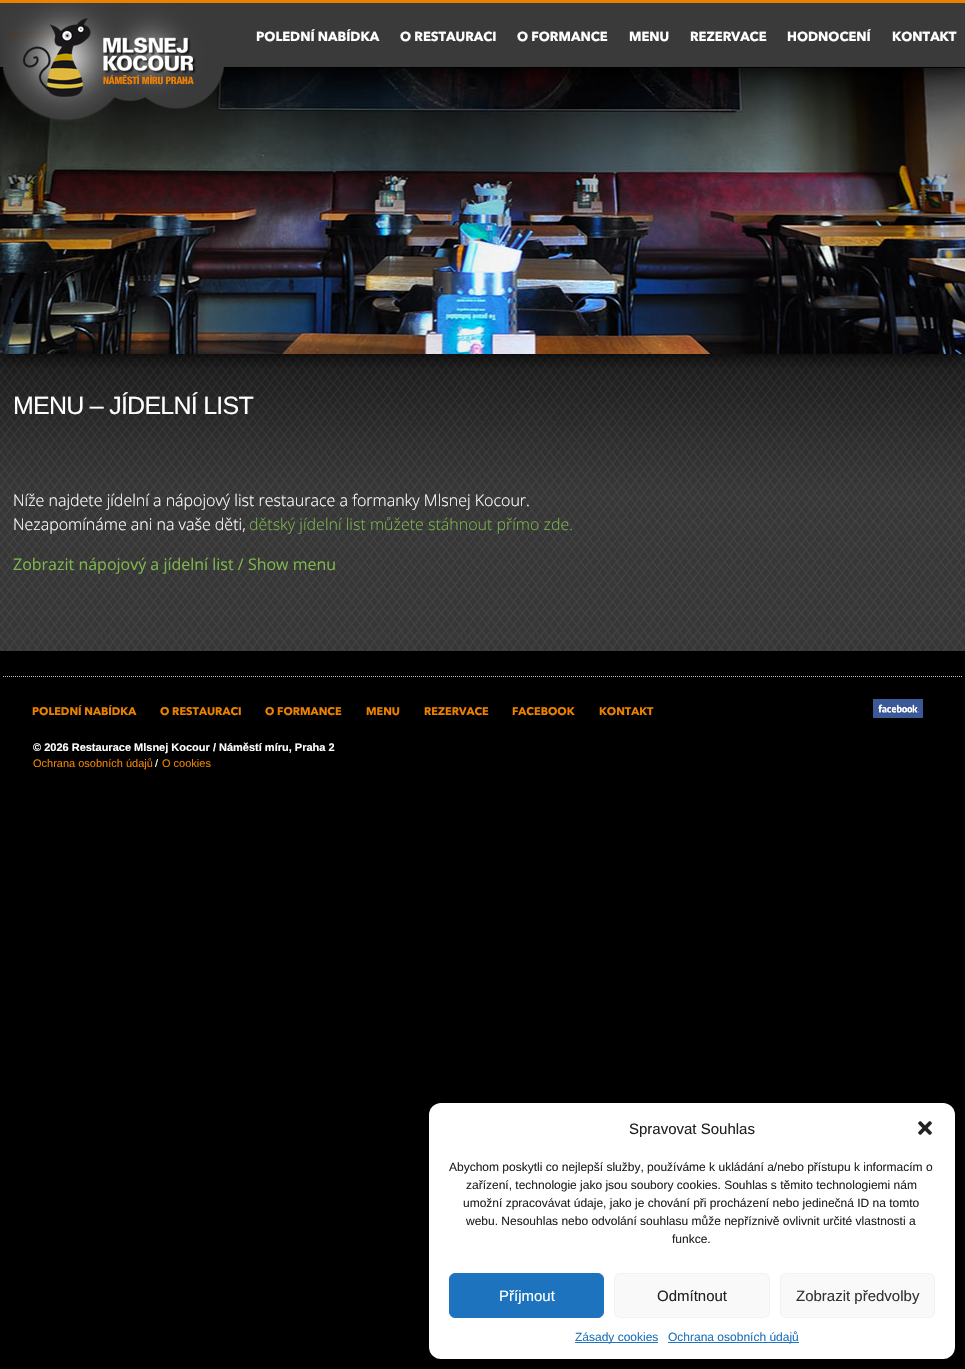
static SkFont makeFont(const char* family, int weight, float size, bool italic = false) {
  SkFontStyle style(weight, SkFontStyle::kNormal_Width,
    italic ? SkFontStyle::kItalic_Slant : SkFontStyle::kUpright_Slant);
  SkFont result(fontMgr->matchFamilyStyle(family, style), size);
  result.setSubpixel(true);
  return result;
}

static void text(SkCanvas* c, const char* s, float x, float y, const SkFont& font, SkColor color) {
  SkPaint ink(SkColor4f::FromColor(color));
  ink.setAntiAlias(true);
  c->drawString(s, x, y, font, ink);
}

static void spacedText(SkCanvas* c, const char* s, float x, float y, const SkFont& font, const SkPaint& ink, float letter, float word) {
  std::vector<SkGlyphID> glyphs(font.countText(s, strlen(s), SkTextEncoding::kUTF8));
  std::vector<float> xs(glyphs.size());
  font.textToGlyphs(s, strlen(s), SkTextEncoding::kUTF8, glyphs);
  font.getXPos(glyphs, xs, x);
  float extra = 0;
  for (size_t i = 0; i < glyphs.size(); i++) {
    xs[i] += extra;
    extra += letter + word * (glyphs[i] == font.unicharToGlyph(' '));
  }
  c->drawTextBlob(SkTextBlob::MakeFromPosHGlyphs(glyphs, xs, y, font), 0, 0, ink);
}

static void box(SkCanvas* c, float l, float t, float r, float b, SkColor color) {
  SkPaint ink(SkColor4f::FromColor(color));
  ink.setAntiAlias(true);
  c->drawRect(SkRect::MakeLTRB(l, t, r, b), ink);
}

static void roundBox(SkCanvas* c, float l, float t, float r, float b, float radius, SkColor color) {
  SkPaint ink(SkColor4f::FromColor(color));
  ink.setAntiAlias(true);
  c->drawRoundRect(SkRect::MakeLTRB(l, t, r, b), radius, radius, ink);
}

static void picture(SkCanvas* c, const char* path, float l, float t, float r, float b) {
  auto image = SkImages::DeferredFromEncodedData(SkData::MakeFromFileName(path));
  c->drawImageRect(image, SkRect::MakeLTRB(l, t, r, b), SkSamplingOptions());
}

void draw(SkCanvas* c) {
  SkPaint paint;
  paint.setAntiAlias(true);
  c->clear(0xff000000);
  picture(c, "img_04.png", 0, 354, 965, 651);
  paint.setColor(0xb3000000);
  paint.setMaskFilter(SkMaskFilter::MakeBlur(kNormal_SkBlurStyle, 7.5f));
  c->drawRect(SkRect::MakeLTRB(0, 73, 965, 359), paint);
  paint.setMaskFilter(nullptr);
  picture(c, "img_03.png", 0, 68, 965, 354);
  paint.setColor(0x80000000);
  paint.setMaskFilter(SkMaskFilter::MakeBlur(kNormal_SkBlurStyle, 7.5f));
  c->drawRect(SkRect::MakeLTRB(0, 5, 965, 72), paint);
  paint.setMaskFilter(nullptr);
  picture(c, "img_01.png", 0, 0, 965, 67);
  picture(c, "img_02.png", 3, 0, 224, 122);
  SkFont face1 = makeFont("Avenir Next", 700, 13);
  text(c, "POLEDNÍ NABÍDKA", 256, 41, face1, 0xffffffff);
  text(c, "O RESTAURACI", 400, 41, face1, 0xffffffff);
  text(c, "O FORMANCE", 517, 41, face1, 0xffffffff);
  text(c, "MENU", 629, 41, face1, 0xffffffff);
  text(c, "REZERVACE", 690, 41, face1, 0xffffffff);
  text(c, "HODNOCENÍ", 787, 41, face1, 0xffffffff);
  text(c, "KONTAKT", 892, 41, face1, 0xffffffff);
  SkFont face2 = makeFont("Liberation Sans", 400, 25);
  paint.setColor(0xffffffff);
  spacedText(c, "MENU – JÍDELNÍ LIST", 13, 414, face2, paint, -0.75f, 0);
  SkFont face3 = makeFont("Open Sans", 300, 16);
  text(c, "Níže najdete jídelní a nápojový list restaurace a formanky Mlsnej Kocour.", 13, 506, face3, 0xffffffff);
  text(c, "Nezapomínáme ani na vaše děti,", 13, 530, face3, 0xffffffff);
  text(c, "dětský jídelní list můžete stáhnout přímo zde.", 249, 530, face3, 0xff7eb74d);
  SkFont face4 = makeFont("Open Sans", 400, 16);
  text(c, "Zobrazit nápojový a jídelní list / Show menu", 13, 570, face4, 0xff7eb74d);
  paint.setStyle(SkPaint::kStroke_Style);
  paint.setStrokeWidth(1);
  paint.setColor(0xffc0c0c0);
  paint.setPathEffect(SkDashPathEffect::Make({{1, 1}}, 0));
  c->drawPath(SkPathBuilder().moveTo(3, 676.5f).lineTo(963, 676.5f).detach(), paint);
  paint.setPathEffect(nullptr);
  SkFont face5 = makeFont("Avenir Next", 700, 11);
  text(c, "POLEDNÍ NABÍDKA", 32, 715, face5, 0xffec8100);
  text(c, "O RESTAURACI", 160, 715, face5, 0xffec8100);
  text(c, "O FORMANCE", 265, 715, face5, 0xffec8100);
  text(c, "MENU", 366, 715, face5, 0xffec8100);
  text(c, "REZERVACE", 424, 715, face5, 0xffec8100);
  text(c, "FACEBOOK", 512, 715, face5, 0xffec8100);
  text(c, "KONTAKT", 599, 715, face5, 0xffec8100);
  picture(c, "img_05.png", 873, 699, 923, 718);
  SkFont face6 = makeFont("Liberation Sans", 700, 11);
  text(c, "© 2026 Restaurace Mlsnej Kocour / Náměstí míru, Praha 2", 33, 751, face6, 0xffffffff);
  SkFont face7 = makeFont("Liberation Sans", 400, 11);
  text(c, "Ochrana osobních údajů", 33, 767, face7, 0xffec8100);
  text(c, "/", 155, 767, face7, 0xffffffff);
  text(c, "O cookies", 162, 767, face7, 0xffec8100);
  roundBox(c, 429, 1103, 955, 1359, 12, 0xffffffff);
  SkFont face8 = makeFont("Liberation Sans", 400, 15);
  text(c, "Spravovat Souhlas", 629, 1134, face8, 0xff222222);
  picture(c, "img_06.png", 918, 1121, 932, 1135);
  SkFont face9 = makeFont("Liberation Sans", 400, 12);
  text(c, "Abychom poskytli co nejlepší služby, používáme k ukládání a/nebo přístupu k informacím o", 449, 1171, face9, 0xff222222);
  text(c, "zařízení, technologie jako jsou soubory cookies. Souhlas s těmito technologiemi nám", 466, 1189, face9, 0xff222222);
  text(c, "umožní zpracovávat údaje, jako je chování při procházení nebo jedinečná ID na tomto", 463, 1207, face9, 0xff222222);
  text(c, "webu. Nesouhlas nebo odvolání souhlasu může nepříznivě ovlivnit určité vlastnosti a", 466, 1225, face9, 0xff222222);
  text(c, "funkce.", 672, 1243, face9, 0xff222222);
  paint.setStyle(SkPaint::kFill_Style);
  paint.setColor(0xff1e73be);
  c->drawRoundRect(SkRect::MakeLTRB(449.5f, 1273.5f, 603.5f, 1317.5f), 5.5f, 5.5f, paint);
  paint.setStyle(SkPaint::kStroke_Style);
  c->drawRoundRect(SkRect::MakeLTRB(449.5f, 1273.5f, 603.5f, 1317.5f), 5.5f, 5.5f, paint);
  text(c, "Příjmout", 499, 1301, face8, 0xffffffff);
  paint.setStyle(SkPaint::kFill_Style);
  paint.setColor(0xfff9f9f9);
  c->drawRoundRect(SkRect::MakeLTRB(614.5f, 1273.5f, 769.5f, 1317.5f), 5.5f, 5.5f, paint);
  paint.setStyle(SkPaint::kStroke_Style);
  paint.setColor(0xfff2f2f2);
  c->drawRoundRect(SkRect::MakeLTRB(614.5f, 1273.5f, 769.5f, 1317.5f), 5.5f, 5.5f, paint);
  text(c, "Odmítnout", 657, 1301, face8, 0xff222222);
  paint.setStyle(SkPaint::kFill_Style);
  paint.setColor(0xfff9f9f9);
  c->drawRoundRect(SkRect::MakeLTRB(780.5f, 1273.5f, 934.5f, 1317.5f), 5.5f, 5.5f, paint);
  paint.setStyle(SkPaint::kStroke_Style);
  paint.setColor(0xfff2f2f2);
  c->drawRoundRect(SkRect::MakeLTRB(780.5f, 1273.5f, 934.5f, 1317.5f), 5.5f, 5.5f, paint);
  text(c, "Zobrazit předvolby", 796, 1301, face8, 0xff333333);
  box(c, 575, 1342, 658, 1343, 0xff1e73be);
  text(c, "Zásady cookies", 575, 1341, face9, 0xff1e73be);
  box(c, 668, 1342, 799, 1343, 0xff1e73be);
  text(c, "Ochrana osobních údajů", 668, 1341, face9, 0xff1e73be);
}
